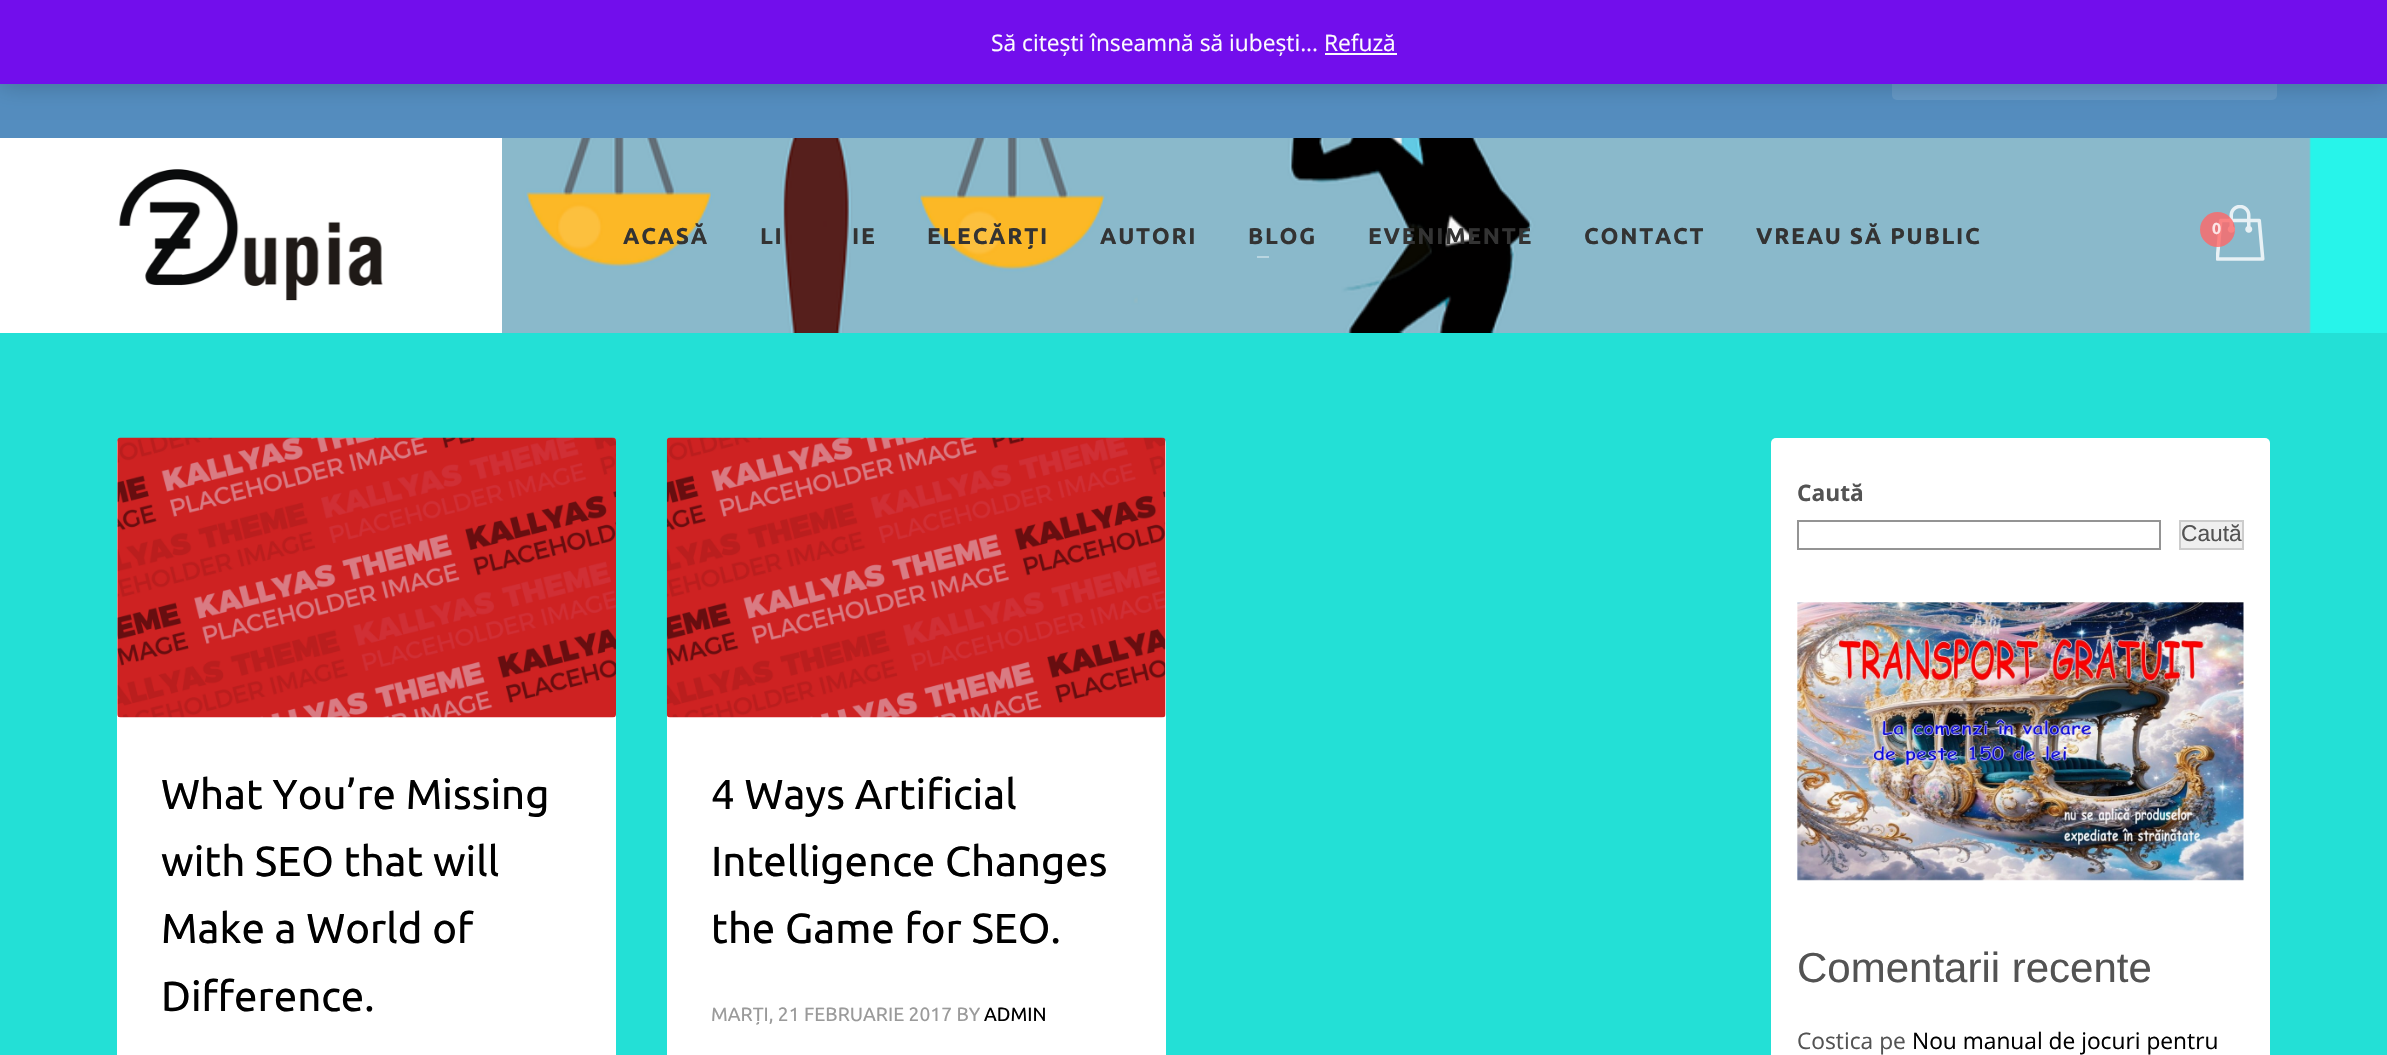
static SkFont makeFont(const char* family, int weight, float size, bool italic = false) {
  SkFontStyle style(weight, SkFontStyle::kNormal_Width,
    italic ? SkFontStyle::kItalic_Slant : SkFontStyle::kUpright_Slant);
  SkFont result(fontMgr->matchFamilyStyle(family, style), size);
  result.setSubpixel(true);
  return result;
}

static void text(SkCanvas* c, const char* s, float x, float y, const SkFont& font, SkColor color) {
  SkPaint ink(SkColor4f::FromColor(color));
  ink.setAntiAlias(true);
  c->drawString(s, x, y, font, ink);
}

static void spacedText(SkCanvas* c, const char* s, float x, float y, const SkFont& font, const SkPaint& ink, float letter, float word) {
  std::vector<SkGlyphID> glyphs(font.countText(s, strlen(s), SkTextEncoding::kUTF8));
  std::vector<float> xs(glyphs.size());
  font.textToGlyphs(s, strlen(s), SkTextEncoding::kUTF8, glyphs);
  font.getXPos(glyphs, xs, x);
  float extra = 0;
  for (size_t i = 0; i < glyphs.size(); i++) {
    xs[i] += extra;
    extra += letter + word * (glyphs[i] == font.unicharToGlyph(' '));
  }
  c->drawTextBlob(SkTextBlob::MakeFromPosHGlyphs(glyphs, xs, y, font), 0, 0, ink);
}

static void box(SkCanvas* c, float l, float t, float r, float b, SkColor color) {
  SkPaint ink(SkColor4f::FromColor(color));
  ink.setAntiAlias(true);
  c->drawRect(SkRect::MakeLTRB(l, t, r, b), ink);
}

static void roundBox(SkCanvas* c, float l, float t, float r, float b, float radius, SkColor color) {
  SkPaint ink(SkColor4f::FromColor(color));
  ink.setAntiAlias(true);
  c->drawRoundRect(SkRect::MakeLTRB(l, t, r, b), radius, radius, ink);
}

static void picture(SkCanvas* c, const char* path, float l, float t, float r, float b) {
  auto image = SkImages::DeferredFromEncodedData(SkData::MakeFromFileName(path));
  c->drawImageRect(image, SkRect::MakeLTRB(l, t, r, b), SkSamplingOptions());
}

void draw(SkCanvas* c) {
  SkPaint paint;
  paint.setAntiAlias(true);
  c->clear(0xff23e0d6);
  box(c, 0, 84, 2387, 138, 0xff548dbf);
  roundBox(c, 1892, 40, 2277, 100, 5, 0xff6598c5);
  paint.setColor(0x33000000);
  paint.setMaskFilter(SkMaskFilter::MakeBlur(kNormal_SkBlurStyle, 11.5f));
  c->drawRect(SkRect::MakeLTRB(0, 2, 2387, 86), paint);
  paint.setMaskFilter(nullptr);
  box(c, 0, 0, 2387, 84, 0xff720eec);
  SkFont face1 = makeFont("Open Sans", 400, 22.75f);
  text(c, "Să citești înseamnă să iubești... Refuză", 991, 51, face1, 0xfffcfbfe);
  box(c, 1325, 53, 1397, 55, 0xfffcfbfe);
  box(c, 2309, 138, 2387, 333, 0xff27f4ea);
  picture(c, "img_01.png", 502, 138, 2311, 333);
  box(c, 0, 138, 502, 333, 0xffffffff);
  picture(c, "img_02.png", 119, 169, 383, 301);
  SkFont face2 = makeFont("Ubuntu", 700, 22.75f);
  paint.setColor(0xff333333);
  spacedText(c, "ACASĂ", 623, 244, face2, paint, 1.75f, 0);
  spacedText(c, "LI", 760, 244, face2, paint, 1.75f, 0);
  spacedText(c, "IE", 852, 244, face2, paint, 1.75f, 0);
  spacedText(c, "ELECĂRȚI", 927, 244, face2, paint, 1.75f, 0);
  spacedText(c, "AUTORI", 1100, 244, face2, paint, 1.75f, 0);
  spacedText(c, "BLOG", 1248, 244, face2, paint, 1.75f, 0);
  box(c, 1257, 256, 1269, 258, 0xffb9d5e0);
  spacedText(c, "EVENIMENTE", 1368, 244, face2, paint, 1.75f, 0);
  spacedText(c, "CONTACT", 1584, 244, face2, paint, 1.75f, 0);
  spacedText(c, "VREAU SĂ PUBLIC", 1756, 244, face2, paint, 1.75f, 0);
  picture(c, "img_03.png", 2216, 205, 2265, 261);
  paint.setColor(0xccff6666);
  c->drawCircle(2217.5f, 229.5f, 17.5f, paint);
  SkFont face3 = makeFont("Ubuntu", 700, 16);
  text(c, "0", 2212, 234, face3, 0xfffce4e5);
  roundBox(c, 117, 438, 616, 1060, 5, 0xffffffff);
  picture(c, "img_04.png", 117, 437, 616, 718);
  SkFont face4 = makeFont("Ubuntu", 400, 42);
  text(c, "What You’re Missing", 161, 809, face4, 0xff000000);
  text(c, "with SEO that will", 161, 876, face4, 0xff000000);
  text(c, "Make a World of", 161, 943, face4, 0xff000000);
  text(c, "Difference.", 161, 1011, face4, 0xff000000);
  roundBox(c, 667, 438, 1166, 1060, 5, 0xffffffff);
  picture(c, "img_05.png", 666, 437, 1166, 718);
  text(c, "4 Ways Artificial", 711, 809, face4, 0xff000000);
  text(c, "Intelligence Changes", 711, 876, face4, 0xff000000);
  text(c, "the Game for SEO.", 711, 943, face4, 0xff000000);
  SkFont face5 = makeFont("Ubuntu", 400, 19.25f);
  text(c, "MARȚI, 21 FEBRUARIE 2017 BY", 711, 1021, face5, 0xff9a9a9a);
  text(c, "ADMIN", 984, 1021, face5, 0xff000000);
  roundBox(c, 1771, 438, 2270, 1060, 5, 0xffffffff);
  SkFont face6 = makeFont("Open Sans", 700, 22.75f);
  text(c, "Caută", 1797, 501, face6, 0xff535353);
  paint.setStyle(SkPaint::kStroke_Style);
  paint.setStrokeWidth(2);
  paint.setColor(0xff949494);
  c->drawRect(SkRect::MakeLTRB(1798, 521, 2160, 549), paint);
  paint.setStyle(SkPaint::kFill_Style);
  paint.setColor(0xffefefef);
  c->drawRect(SkRect::MakeLTRB(2180, 521, 2243, 549), paint);
  paint.setStyle(SkPaint::kStroke_Style);
  paint.setColor(0xffcccccc);
  c->drawRect(SkRect::MakeLTRB(2180, 521, 2243, 549), paint);
  SkFont face7 = makeFont("Liberation Sans", 400, 22.75f);
  text(c, "Caută", 2181, 541, face7, 0xff535353);
  picture(c, "img_06.png", 1797, 602, 2244, 881);
  SkFont face8 = makeFont("Liberation Sans", 400, 42);
  text(c, "Comentarii recente", 1797, 982, face8, 0xff535353);
  text(c, "Costica pe", 1797, 1049, face1, 0xff535353);
  text(c, "Nou manual de jocuri pentru", 1912, 1049, face1, 0xff000000);
}
